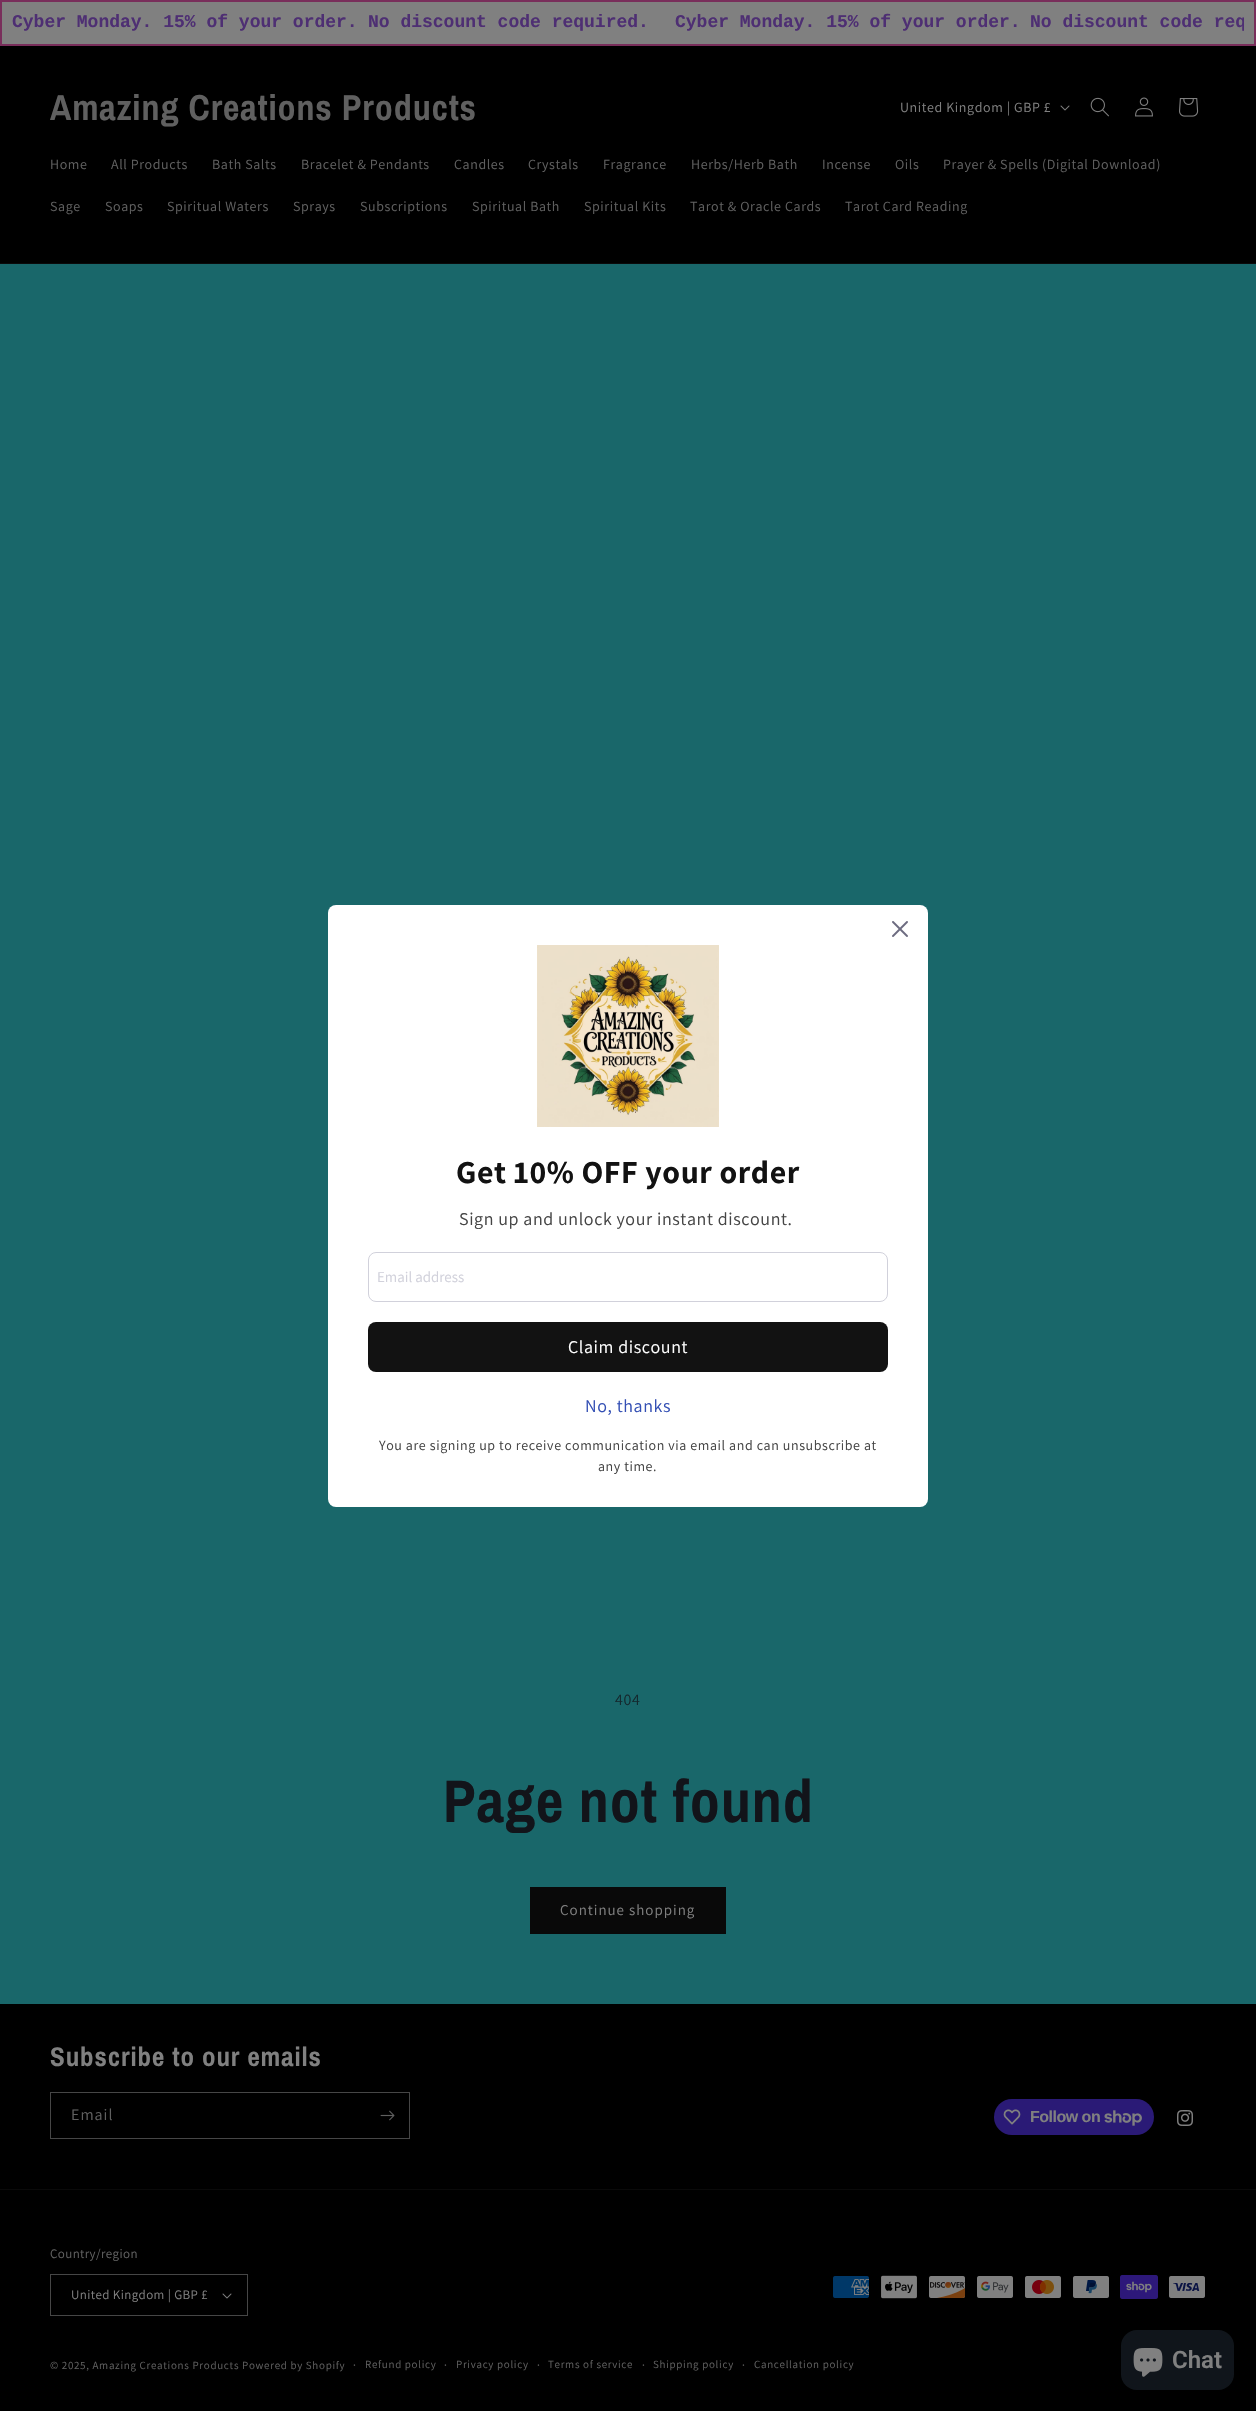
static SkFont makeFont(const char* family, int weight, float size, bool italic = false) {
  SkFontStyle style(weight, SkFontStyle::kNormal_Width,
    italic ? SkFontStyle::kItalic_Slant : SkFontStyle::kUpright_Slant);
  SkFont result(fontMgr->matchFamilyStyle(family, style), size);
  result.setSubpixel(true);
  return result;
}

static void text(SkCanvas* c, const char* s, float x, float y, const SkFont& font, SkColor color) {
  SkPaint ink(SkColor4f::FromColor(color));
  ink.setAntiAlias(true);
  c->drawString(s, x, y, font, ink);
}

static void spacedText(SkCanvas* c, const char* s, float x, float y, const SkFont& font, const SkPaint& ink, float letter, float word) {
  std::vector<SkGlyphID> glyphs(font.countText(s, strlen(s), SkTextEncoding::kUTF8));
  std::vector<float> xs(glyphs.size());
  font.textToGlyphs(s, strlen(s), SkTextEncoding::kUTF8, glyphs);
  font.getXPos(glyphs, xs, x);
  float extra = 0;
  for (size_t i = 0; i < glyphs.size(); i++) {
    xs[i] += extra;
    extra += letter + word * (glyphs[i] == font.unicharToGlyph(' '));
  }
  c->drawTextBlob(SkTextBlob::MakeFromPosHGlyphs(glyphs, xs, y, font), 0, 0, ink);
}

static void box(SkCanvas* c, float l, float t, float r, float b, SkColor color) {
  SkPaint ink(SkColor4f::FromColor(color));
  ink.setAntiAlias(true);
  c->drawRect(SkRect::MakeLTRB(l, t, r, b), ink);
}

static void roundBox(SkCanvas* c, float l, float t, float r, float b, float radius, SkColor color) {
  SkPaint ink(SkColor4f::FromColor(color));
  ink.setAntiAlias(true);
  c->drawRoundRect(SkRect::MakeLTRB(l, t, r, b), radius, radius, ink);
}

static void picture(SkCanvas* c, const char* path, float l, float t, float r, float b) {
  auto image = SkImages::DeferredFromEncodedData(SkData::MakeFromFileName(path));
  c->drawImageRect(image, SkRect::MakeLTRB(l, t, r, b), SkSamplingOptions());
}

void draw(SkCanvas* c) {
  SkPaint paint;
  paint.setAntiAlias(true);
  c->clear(0xff19676a);
  paint.setColor(0xff808080);
  c->drawRect(SkRect::MakeLTRB(1, 1, 1255, 45), paint);
  paint.setStyle(SkPaint::kStroke_Style);
  paint.setStrokeWidth(2);
  paint.setColor(0xff792e5b);
  c->drawRect(SkRect::MakeLTRB(1, 1, 1255, 45), paint);
  SkFont face1 = makeFont("Liberation Mono", 700, 18);
  text(c, "Cyber Monday. 15% of your order.", 12, 27, face1, 0xff4e2f73);
  text(c, "No discount code required.", 368, 27, face1, 0xff4e2f73);
  text(c, "Cyber Monday. 15% of your order.", 675, 27, face1, 0xff4e2f73);
  c->save();
  c->clipRect(SkRect::MakeLTRB(12, 12, 1244, 34));
  text(c, "No discount code req", 1030, 27, face1, 0xff4e2f73);
  c->restore();
  box(c, 0, 46, 1256, 263, 0xff000000);
  box(c, 0, 263, 1256, 264, 0xff0a0a0a);
  SkFont face2 = makeFont("Archivo Narrow", 700, 36);
  paint.setStyle(SkPaint::kFill_Style);
  paint.setColor(0xff606060);
  spacedText(c, "Amazing Creations Products", 50, 120, face2, paint, 0.9f, 0);
  SkFont face3 = makeFont("Assistant", 400, 14);
  paint.setColor(0xff808080);
  spacedText(c, "United Kingdom | GBP £", 900, 112, face3, paint, 0.6f, 0);
  picture(c, "img_01.png", 1060, 105, 1070, 111);
  picture(c, "img_02.png", 1090, 97, 1109, 117);
  picture(c, "img_03.png", 1135, 97, 1153, 117);
  picture(c, "img_04.png", 1179, 98, 1199, 117);
  paint.setColor(0xff606060);
  spacedText(c, "Home", 50, 169, face3, paint, 0.6f, 0);
  spacedText(c, "All Products", 111, 169, face3, paint, 0.6f, 0);
  spacedText(c, "Bath Salts", 212, 169, face3, paint, 0.6f, 0);
  spacedText(c, "Bracelet & Pendants", 301, 169, face3, paint, 0.6f, 0);
  spacedText(c, "Candles", 454, 169, face3, paint, 0.6f, 0);
  spacedText(c, "Crystals", 528, 169, face3, paint, 0.6f, 0);
  spacedText(c, "Fragrance", 603, 169, face3, paint, 0.6f, 0);
  spacedText(c, "Herbs/Herb Bath", 691, 169, face3, paint, 0.6f, 0);
  spacedText(c, "Incense", 822, 169, face3, paint, 0.6f, 0);
  spacedText(c, "Oils", 895, 169, face3, paint, 0.6f, 0);
  spacedText(c, "Prayer & Spells (Digital Download)", 943, 169, face3, paint, 0.6f, 0);
  spacedText(c, "Sage", 50, 211, face3, paint, 0.6f, 0);
  spacedText(c, "Soaps", 105, 211, face3, paint, 0.6f, 0);
  spacedText(c, "Spiritual Waters", 167, 211, face3, paint, 0.6f, 0);
  spacedText(c, "Sprays", 293, 211, face3, paint, 0.6f, 0);
  spacedText(c, "Subscriptions", 360, 211, face3, paint, 0.6f, 0);
  spacedText(c, "Spiritual Bath", 472, 211, face3, paint, 0.6f, 0);
  spacedText(c, "Spiritual Kits", 584, 211, face3, paint, 0.6f, 0);
  spacedText(c, "Tarot & Oracle Cards", 690, 211, face3, paint, 0.6f, 0);
  spacedText(c, "Tarot Card Reading", 845, 211, face3, paint, 0.6f, 0);
  roundBox(c, 328, 905, 928, 1507, 8, 0xffffffff);
  picture(c, "img_05.png", 892, 921, 908, 937);
  picture(c, "img_06.png", 537, 945, 719, 1127);
  SkFont face4 = makeFont("Assistant", 700, 32);
  paint.setColor(0xff121212);
  spacedText(c, "Get 10% OFF your order", 456, 1183, face4, paint, 0.6f, 0);
  SkFont face5 = makeFont("Assistant", 400, 18);
  paint.setColor(0xff454545);
  spacedText(c, "Sign up and unlock your instant discount.", 459, 1225, face5, paint, 0.6f, 0);
  paint.setStyle(SkPaint::kStroke_Style);
  paint.setStrokeWidth(1);
  paint.setColor(0xffd1d1db);
  c->drawRoundRect(SkRect::MakeLTRB(368.5f, 1252.5f, 887.5f, 1301.5f), 7.5f, 7.5f, paint);
  SkFont face6 = makeFont("Assistant", 400, 15);
  text(c, "Email address", 377, 1282, face6, 0xffd1d1db);
  roundBox(c, 368, 1322, 888, 1372, 8, 0xff121212);
  paint.setStyle(SkPaint::kFill_Style);
  paint.setColor(0xffffffff);
  spacedText(c, "Claim discount", 568, 1353, face5, paint, 0.6f, 0);
  paint.setColor(0xff334fb4);
  spacedText(c, "No, thanks", 585, 1412, face5, paint, 0.6f, 0);
  paint.setColor(0xff454545);
  spacedText(c, "You are signing up to receive communication via email and can unsubscribe at", 379, 1450, face3, paint, 0.6f, 0);
  spacedText(c, "any time.", 598, 1471, face3, paint, 0.6f, 0);
  SkFont face7 = makeFont("Assistant", 400, 16);
  paint.setColor(0xff14292e);
  spacedText(c, "404", 615, 1705, face7, paint, 0.6f, 0);
  SkFont face8 = makeFont("Archivo Narrow", 700, 60);
  paint.setColor(0xff12141a);
  spacedText(c, "Page not found", 443, 1822, face8, paint, 0.9f, 0);
  box(c, 530, 1887, 726, 1934, 0xff090909);
  paint.setColor(0xff808080);
  spacedText(c, "Continue shopping", 560, 1915, face6, paint, 1, 0);
  box(c, 0, 2004, 1256, 2411, 0xff000000);
  SkFont face9 = makeFont("Archivo Narrow", 700, 27);
  spacedText(c, "Subscribe to our emails", 50, 2066, face9, paint, 0.9f, 0);
  paint.setStyle(SkPaint::kStroke_Style);
  paint.setColor(0xff464646);
  c->drawRect(SkRect::MakeLTRB(50.5f, 2092.5f, 409.5f, 2138.5f), paint);
  paint.setStyle(SkPaint::kFill_Style);
  paint.setColor(0xff606060);
  spacedText(c, "Email", 71, 2120, face7, paint, 1, 0);
  picture(c, "img_07.png", 380, 2110, 395, 2121);
  roundBox(c, 994, 2099, 1154, 2135, 18, 0xff2a1a76);
  picture(c, "img_08.png", 1003, 2109, 1021, 2125);
  SkFont face10 = makeFont("Liberation Sans", 700, 16);
  paint.setColor(0xff808080);
  spacedText(c, "Follow on", 1030, 2122, face10, paint, -0.5f, 0);
  picture(c, "img_09.png", 1104, 2110, 1142, 2126);
  picture(c, "img_10.png", 1177, 2110, 1193, 2126);
  box(c, 0, 2189, 1256, 2190, 0xff0a0a0a);
  SkFont face11 = makeFont("Assistant", 400, 13);
  paint.setColor(0xff606060);
  spacedText(c, "Country/region", 50, 2258, face11, paint, 0.4f, 0);
  picture(c, "img_01.png", 222, 2293, 232, 2299);
  paint.setStyle(SkPaint::kStroke_Style);
  paint.setColor(0xff464646);
  c->drawRect(SkRect::MakeLTRB(50.5f, 2274.5f, 247.5f, 2315.5f), paint);
  paint.setStyle(SkPaint::kFill_Style);
  paint.setColor(0xff808080);
  spacedText(c, "United Kingdom | GBP £", 71, 2299, face11, paint, 0.4f, 0);
  picture(c, "img_11.png", 833, 2276, 869, 2298);
  picture(c, "img_12.png", 881, 2275, 917, 2299);
  picture(c, "img_13.png", 929, 2276, 966, 2298);
  picture(c, "img_14.png", 977, 2276, 1013, 2298);
  picture(c, "img_15.png", 1025, 2276, 1061, 2298);
  picture(c, "img_16.png", 1073, 2276, 1109, 2298);
  picture(c, "img_17.png", 1120, 2275, 1158, 2299);
  picture(c, "img_18.png", 1169, 2276, 1205, 2298);
  SkFont face12 = makeFont("Assistant", 400, 11);
  paint.setColor(0xff606060);
  spacedText(c, "© 2025, Amazing Creations Products Powered by Shopify", 50, 2369, face12, paint, 0.7f, 0);
  SkFont face13 = makeFont("Assistant", 400, 12);
  spacedText(c, "·", 353, 2369, face13, paint, 0.7f, 0);
  spacedText(c, "Refund policy", 365, 2368, face12, paint, 0.7f, 0);
  spacedText(c, "·", 444, 2369, face13, paint, 0.7f, 0);
  spacedText(c, "Privacy policy", 456, 2368, face12, paint, 0.7f, 0);
  spacedText(c, "·", 537, 2369, face13, paint, 0.7f, 0);
  spacedText(c, "Terms of service", 548, 2368, face12, paint, 0.7f, 0);
  spacedText(c, "·", 642, 2369, face13, paint, 0.7f, 0);
  spacedText(c, "Shipping policy", 653, 2368, face12, paint, 0.7f, 0);
  spacedText(c, "·", 742, 2369, face13, paint, 0.7f, 0);
  spacedText(c, "Cancellation policy", 754, 2368, face12, paint, 0.7f, 0);
  roundBox(c, 1121, 2330, 1234, 2390, 16, 0xff10151b);
  picture(c, "img_19.png", 1133, 2348, 1163, 2377);
  SkFont face14 = makeFont("Roboto", 600, 24);
  text(c, "Chat", 1172, 2368, face14, 0xff808080);
}
